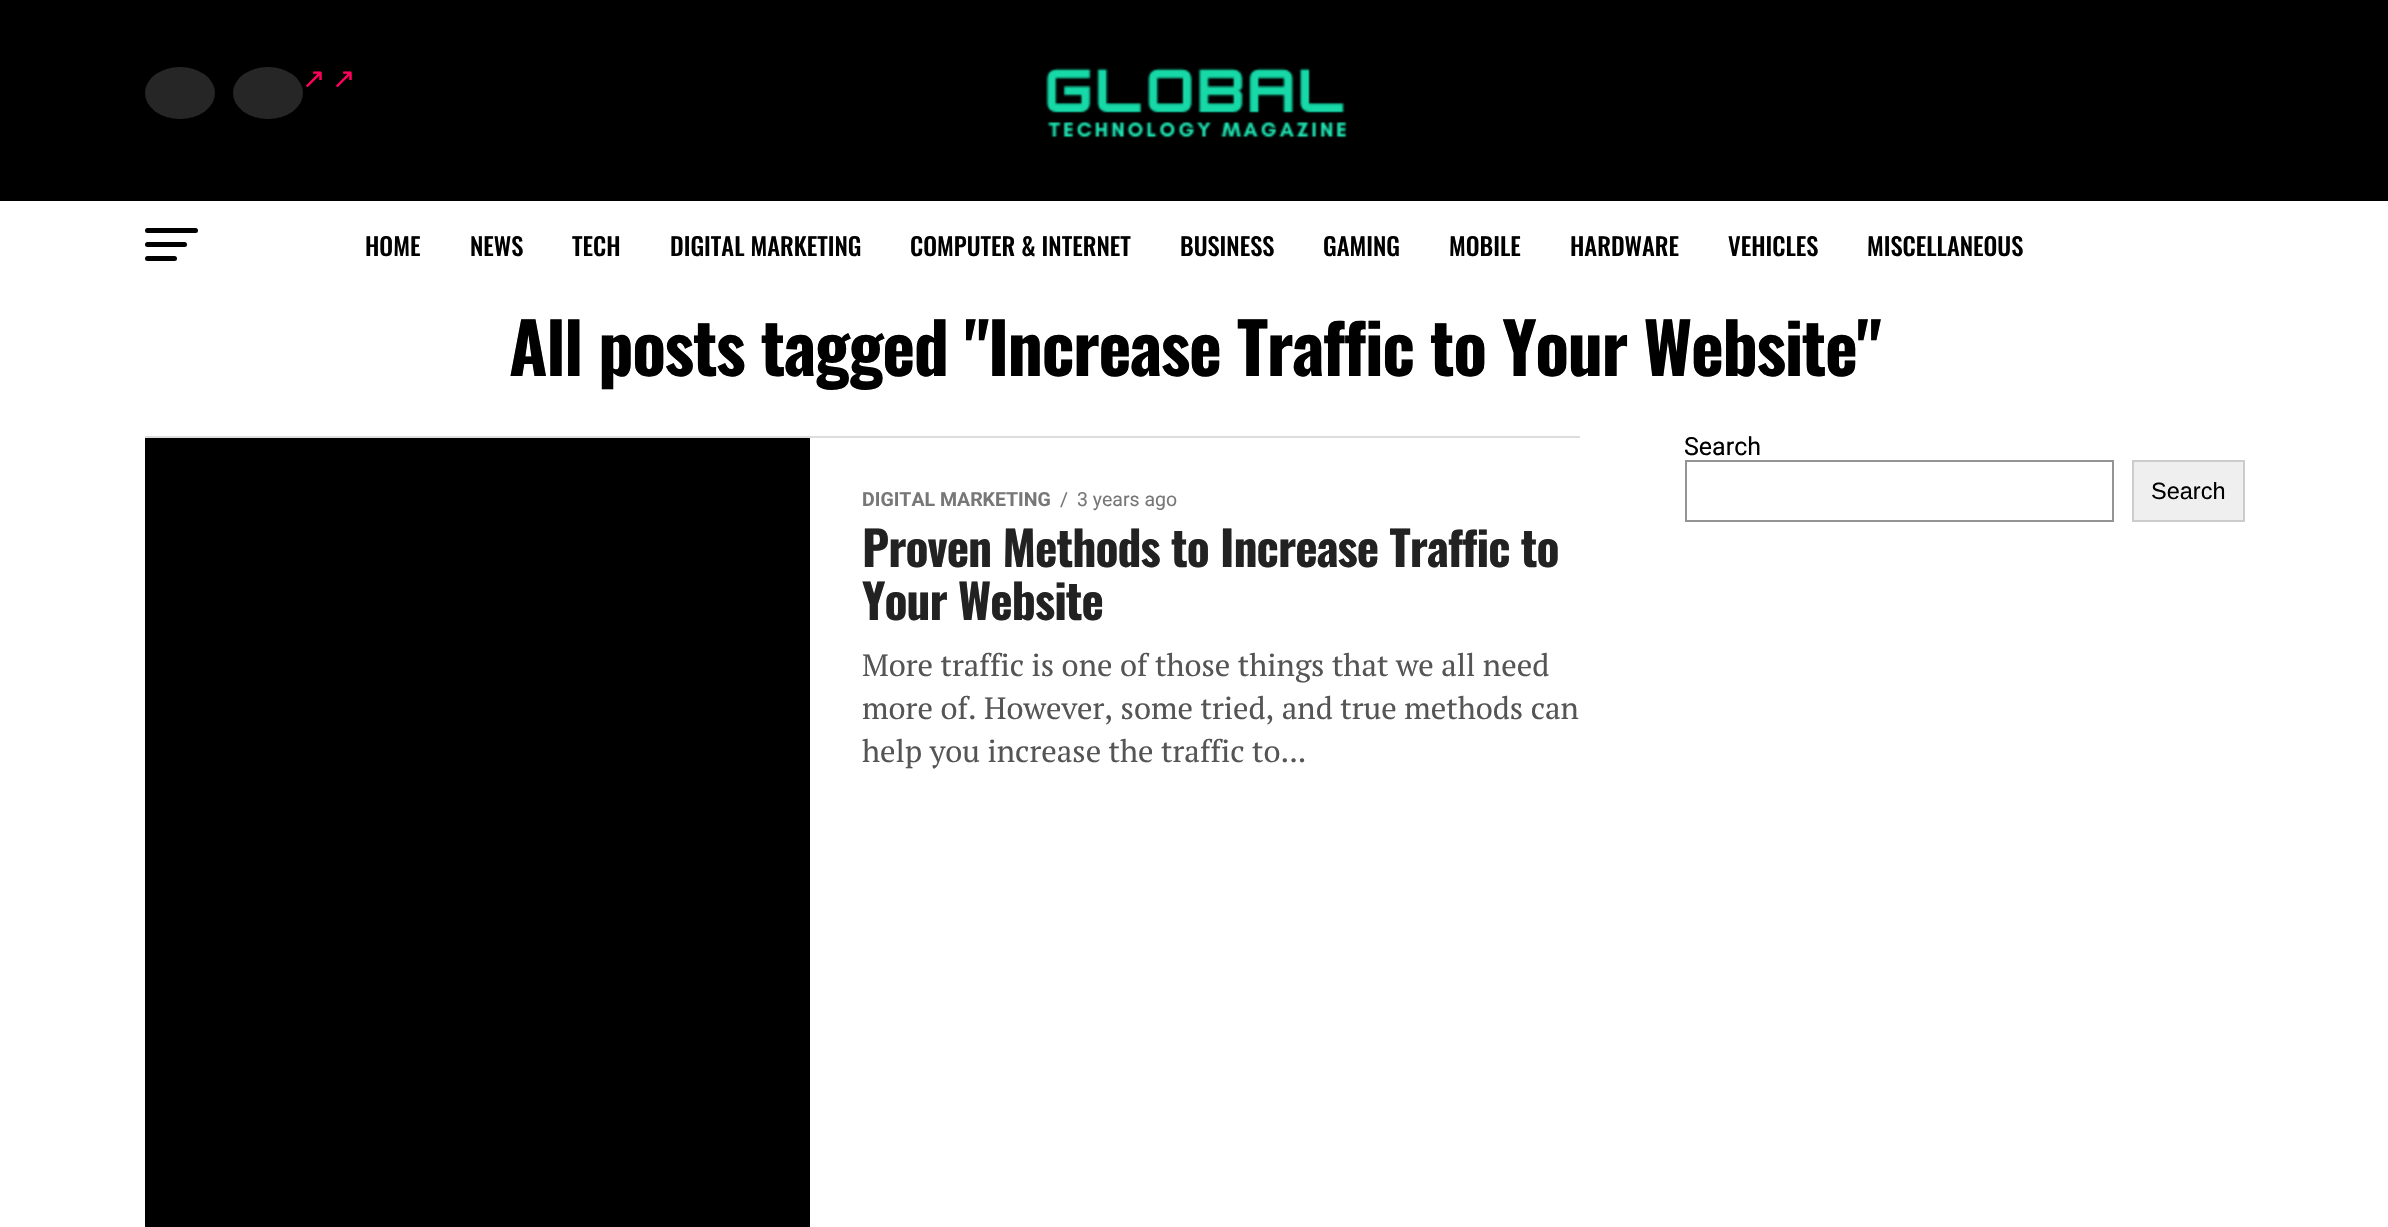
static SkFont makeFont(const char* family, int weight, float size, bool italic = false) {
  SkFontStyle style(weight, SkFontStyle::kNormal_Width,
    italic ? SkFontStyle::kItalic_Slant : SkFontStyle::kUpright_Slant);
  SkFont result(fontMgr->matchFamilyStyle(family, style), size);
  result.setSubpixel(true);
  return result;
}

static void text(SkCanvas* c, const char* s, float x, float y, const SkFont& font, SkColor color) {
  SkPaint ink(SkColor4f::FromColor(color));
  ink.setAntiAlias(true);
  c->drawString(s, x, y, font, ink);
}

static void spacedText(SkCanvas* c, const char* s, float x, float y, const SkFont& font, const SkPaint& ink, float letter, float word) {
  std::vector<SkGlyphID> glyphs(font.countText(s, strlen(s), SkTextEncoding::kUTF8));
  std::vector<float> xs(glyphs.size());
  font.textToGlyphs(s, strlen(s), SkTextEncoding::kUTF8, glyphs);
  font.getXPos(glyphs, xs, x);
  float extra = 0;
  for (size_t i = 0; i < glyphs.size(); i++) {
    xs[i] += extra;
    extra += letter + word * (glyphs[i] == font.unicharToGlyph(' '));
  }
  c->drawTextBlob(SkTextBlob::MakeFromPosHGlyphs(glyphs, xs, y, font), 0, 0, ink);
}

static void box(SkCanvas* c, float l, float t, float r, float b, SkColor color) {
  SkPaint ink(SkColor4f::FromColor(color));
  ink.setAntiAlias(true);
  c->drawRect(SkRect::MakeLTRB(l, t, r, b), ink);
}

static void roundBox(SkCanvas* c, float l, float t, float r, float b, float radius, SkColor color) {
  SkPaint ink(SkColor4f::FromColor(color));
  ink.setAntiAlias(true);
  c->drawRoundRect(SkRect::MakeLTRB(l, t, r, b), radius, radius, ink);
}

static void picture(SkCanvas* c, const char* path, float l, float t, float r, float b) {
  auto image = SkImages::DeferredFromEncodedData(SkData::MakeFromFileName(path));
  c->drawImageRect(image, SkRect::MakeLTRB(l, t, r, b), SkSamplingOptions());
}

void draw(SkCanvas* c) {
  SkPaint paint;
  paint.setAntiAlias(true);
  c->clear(0xffffffff);
  box(c, 0, 0, 2388, 201, 0xff000000);
  paint.setColor(0xff262626);
  c->drawOval(SkRect::MakeLTRB(145, 67, 215, 119), paint);
  SkFont face1 = makeFont("DejaVu Sans", 400, 28);
  text(c, "↗", 302, 88, face1, 0xffff005b);
  c->drawOval(SkRect::MakeLTRB(233, 67, 303, 119), paint);
  text(c, "↗", 332, 88, face1, 0xffff005b);
  picture(c, "img_01.png", 1045, 67, 1347, 138);
  roundBox(c, 145, 228, 198, 233, 2.5f, 0xff000000);
  roundBox(c, 145, 242, 187, 247, 2.5f, 0xff000000);
  roundBox(c, 145, 256, 177, 261, 2.5f, 0xff000000);
  SkFont face2 = makeFont("Oswald", 500, 24.5f);
  text(c, "HOME", 365, 256, face2, 0xff000000);
  text(c, "NEWS", 470, 256, face2, 0xff000000);
  text(c, "TECH", 572, 256, face2, 0xff000000);
  text(c, "DIGITAL MARKETING", 670, 256, face2, 0xff000000);
  text(c, "COMPUTER & INTERNET", 910, 256, face2, 0xff000000);
  text(c, "BUSINESS", 1180, 256, face2, 0xff000000);
  text(c, "GAMING", 1323, 256, face2, 0xff000000);
  text(c, "MOBILE", 1449, 256, face2, 0xff000000);
  text(c, "HARDWARE", 1570, 256, face2, 0xff000000);
  text(c, "VEHICLES", 1728, 256, face2, 0xff000000);
  text(c, "MISCELLANEOUS", 1867, 256, face2, 0xff000000);
  SkFont face3 = makeFont("Oswald", 700, 70);
  paint.setColor(0xff000000);
  spacedText(c, "All posts tagged \"Increase Traffic to Your Website\"", 509, 376, face3, paint, -1.4f, 0);
  SkFont face4 = makeFont("Roboto", 400, 25);
  text(c, "Search", 1684, 455, face4, 0xff000000);
  paint.setStyle(SkPaint::kStroke_Style);
  paint.setStrokeWidth(2);
  paint.setColor(0xff949494);
  c->drawRect(SkRect::MakeLTRB(1686, 461, 2113, 521), paint);
  paint.setStyle(SkPaint::kFill_Style);
  paint.setColor(0xffefefef);
  c->drawRect(SkRect::MakeLTRB(2133, 461, 2244, 521), paint);
  paint.setStyle(SkPaint::kStroke_Style);
  paint.setColor(0xffcccccc);
  c->drawRect(SkRect::MakeLTRB(2133, 461, 2244, 521), paint);
  SkFont face5 = makeFont("Liberation Sans", 400, 23.5f);
  text(c, "Search", 2151, 499, face5, 0xff000000);
  box(c, 145, 436, 1580, 438, 0xffdddddd);
  box(c, 145, 438, 810, 1227, 0xff000000);
  SkFont face6 = makeFont("Roboto", 700, 19.5f);
  text(c, "DIGITAL MARKETING", 862, 506, face6, 0xff777777);
  SkFont face7 = makeFont("Roboto", 400, 19.5f);
  text(c, "/", 1060, 506, face7, 0xff777777);
  text(c, "3 years ago", 1077, 506, face7, 0xff777777);
  SkFont face8 = makeFont("Oswald", 700, 47.6f);
  paint.setStyle(SkPaint::kFill_Style);
  paint.setColor(0xff222222);
  spacedText(c, "Proven Methods to Increase Traffic to", 862, 567, face8, paint, -0.95f, 0);
  spacedText(c, "Your Website", 862, 620, face8, paint, -0.95f, 0);
  SkFont face9 = makeFont("PT Serif", 400, 30.8f);
  text(c, "More traffic is one of those things that we all need", 862, 676, face9, 0xff555555);
  text(c, "more of. However, some tried, and true methods can", 862, 719, face9, 0xff555555);
  text(c, "help you increase the traffic to...", 862, 762, face9, 0xff555555);
}
